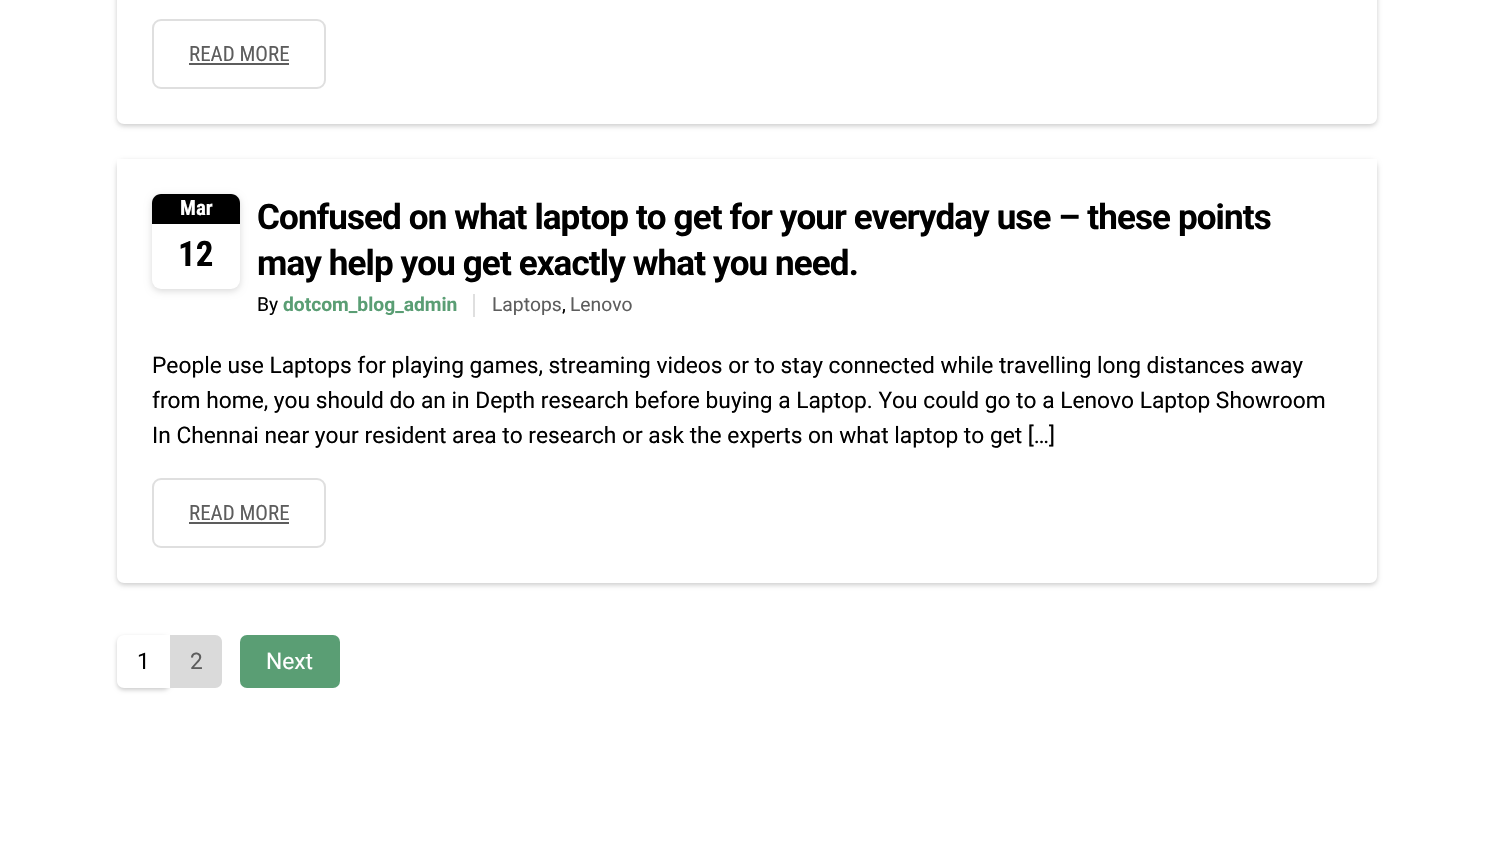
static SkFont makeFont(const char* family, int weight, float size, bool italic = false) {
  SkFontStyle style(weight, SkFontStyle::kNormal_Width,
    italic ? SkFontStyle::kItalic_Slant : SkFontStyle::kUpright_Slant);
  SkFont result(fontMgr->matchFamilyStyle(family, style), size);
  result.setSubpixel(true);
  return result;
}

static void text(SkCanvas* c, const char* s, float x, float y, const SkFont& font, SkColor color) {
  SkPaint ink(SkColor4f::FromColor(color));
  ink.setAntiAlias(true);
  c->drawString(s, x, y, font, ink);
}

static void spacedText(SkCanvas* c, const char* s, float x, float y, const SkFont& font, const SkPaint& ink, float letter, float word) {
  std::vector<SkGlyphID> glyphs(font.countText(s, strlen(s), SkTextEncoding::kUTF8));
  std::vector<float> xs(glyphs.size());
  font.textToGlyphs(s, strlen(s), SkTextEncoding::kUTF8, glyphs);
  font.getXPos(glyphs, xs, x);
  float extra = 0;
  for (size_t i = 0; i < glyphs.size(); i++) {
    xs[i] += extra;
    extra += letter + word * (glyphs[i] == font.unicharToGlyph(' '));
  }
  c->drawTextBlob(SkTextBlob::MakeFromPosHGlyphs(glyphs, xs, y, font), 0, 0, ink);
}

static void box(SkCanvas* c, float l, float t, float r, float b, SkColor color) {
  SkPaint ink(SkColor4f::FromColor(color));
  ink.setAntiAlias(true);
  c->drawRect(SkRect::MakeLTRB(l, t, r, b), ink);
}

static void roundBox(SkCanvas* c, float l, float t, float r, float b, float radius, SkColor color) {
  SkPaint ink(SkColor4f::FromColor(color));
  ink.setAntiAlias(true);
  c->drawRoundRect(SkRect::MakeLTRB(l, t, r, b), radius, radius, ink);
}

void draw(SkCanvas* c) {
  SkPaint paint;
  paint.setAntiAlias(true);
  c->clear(0xffffffff);
  paint.setColor(0x33000000);
  paint.setMaskFilter(SkMaskFilter::MakeBlur(kNormal_SkBlurStyle, 2.5f));
  c->drawRoundRect(SkRect::MakeLTRB(117, -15, 1377, 126), 7, 7, paint);
  paint.setMaskFilter(nullptr);
  paint.setColor(0xffffffff);
  c->drawPath(SkPathBuilder().moveTo(117, -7).lineTo(1377, -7).lineTo(1377, 117).cubicTo(1377, 121, 1374, 124, 1370, 124).lineTo(124, 124).cubicTo(120, 124, 117, 121, 117, 117).close().detach(), paint);
  paint.setStyle(SkPaint::kStroke_Style);
  paint.setStrokeWidth(2);
  paint.setColor(0xffdfdfdf);
  c->drawRoundRect(SkRect::MakeLTRB(153, 20, 325, 88), 8, 8, paint);
  SkFont face1 = makeFont("Roboto Condensed", 400, 21);
  text(c, "READ MORE", 189, 61, face1, 0xff5d5d5d);
  box(c, 189, 63, 289, 65, 0xff5d5d5d);
  paint.setStyle(SkPaint::kFill_Style);
  paint.setColor(0x33000000);
  paint.setMaskFilter(SkMaskFilter::MakeBlur(kNormal_SkBlurStyle, 2.5f));
  c->drawRoundRect(SkRect::MakeLTRB(117, 161, 1377, 585), 7, 7, paint);
  paint.setMaskFilter(nullptr);
  paint.setColor(0xffffffff);
  c->drawPath(SkPathBuilder().moveTo(117, 159).lineTo(1377, 159).lineTo(1377, 576).cubicTo(1377, 580, 1374, 583, 1370, 583).lineTo(124, 583).cubicTo(120, 583, 117, 580, 117, 576).close().detach(), paint);
  paint.setColor(0x26000000);
  paint.setMaskFilter(SkMaskFilter::MakeBlur(kNormal_SkBlurStyle, 3.5f));
  c->drawRoundRect(SkRect::MakeLTRB(152, 196, 240, 291), 9, 9, paint);
  paint.setMaskFilter(nullptr);
  roundBox(c, 152, 194, 240, 289, 9, 0xffffffff);
  paint.setColor(0xff000000);
  c->drawPath(SkPathBuilder().moveTo(161, 194).lineTo(231, 194).cubicTo(236, 194, 240, 198, 240, 203).lineTo(240, 224).lineTo(152, 224).lineTo(152, 203).cubicTo(152, 198, 156, 194, 161, 194).close().detach(), paint);
  SkFont face2 = makeFont("Roboto Condensed", 700, 21);
  text(c, "Mar", 180, 215, face2, 0xffffffff);
  SkFont face3 = makeFont("Roboto Condensed", 700, 35);
  text(c, "12", 178, 266, face3, 0xff000000);
  SkFont face4 = makeFont("Roboto", 700, 35);
  spacedText(c, "Confused on what laptop to get for your everyday use – these points", 257, 229, face4, paint, -0.88f, 0);
  spacedText(c, "may help you get exactly what you need.", 257, 275, face4, paint, -0.88f, 0);
  SkFont face5 = makeFont("Roboto", 400, 19.25f);
  text(c, "By", 257, 311, face5, 0xff000000);
  SkFont face6 = makeFont("Roboto", 700, 19.25f);
  text(c, "dotcom_blog_admin", 283, 311, face6, 0xff5a9e74);
  text(c, "Laptops", 492, 311, face5, 0xff5d5d5d);
  box(c, 473, 294, 475, 317, 0xffdfdfdf);
  text(c, ",", 562, 311, face5, 0xff000000);
  text(c, "Lenovo", 570, 311, face5, 0xff5d5d5d);
  SkFont face7 = makeFont("Roboto", 400, 22.75f);
  text(c, "People use Laptops for playing games, streaming videos or to stay connected while travelling long distances away", 152, 373, face7, 0xff000000);
  text(c, "from home, you should do an in Depth research before buying a Laptop. You could go to a Lenovo Laptop Showroom", 152, 408, face7, 0xff000000);
  text(c, "In Chennai near your resident area to research or ask the experts on what laptop to get […]", 152, 443, face7, 0xff000000);
  paint.setStyle(SkPaint::kStroke_Style);
  paint.setColor(0xffdfdfdf);
  c->drawRoundRect(SkRect::MakeLTRB(153, 479, 325, 547), 8, 8, paint);
  text(c, "READ MORE", 189, 520, face1, 0xff5d5d5d);
  box(c, 189, 522, 289, 524, 0xff5d5d5d);
  paint.setStyle(SkPaint::kFill_Style);
  paint.setColor(0x33000000);
  paint.setMaskFilter(SkMaskFilter::MakeBlur(kNormal_SkBlurStyle, 2));
  c->drawRoundRect(SkRect::MakeLTRB(117, 637, 170, 690), 7, 7, paint);
  paint.setMaskFilter(nullptr);
  paint.setColor(0xffffffff);
  c->drawPath(SkPathBuilder().moveTo(124, 635).lineTo(170, 635).lineTo(170, 688).lineTo(124, 688).cubicTo(120, 688, 117, 685, 117, 681).lineTo(117, 642).cubicTo(117, 638, 120, 635, 124, 635).close().detach(), paint);
  text(c, "1", 137, 669, face7, 0xff000000);
  paint.setColor(0xffdadada);
  c->drawPath(SkPathBuilder().moveTo(170, 635).lineTo(215, 635).cubicTo(219, 635, 222, 638, 222, 642).lineTo(222, 681).cubicTo(222, 685, 219, 688, 215, 688).lineTo(170, 688).close().detach(), paint);
  text(c, "2", 190, 669, face7, 0xff5d5d5d);
  roundBox(c, 240, 635, 340, 688, 7, 0xff5a9e74);
  text(c, "Next", 266, 669, face7, 0xffffffff);
}
